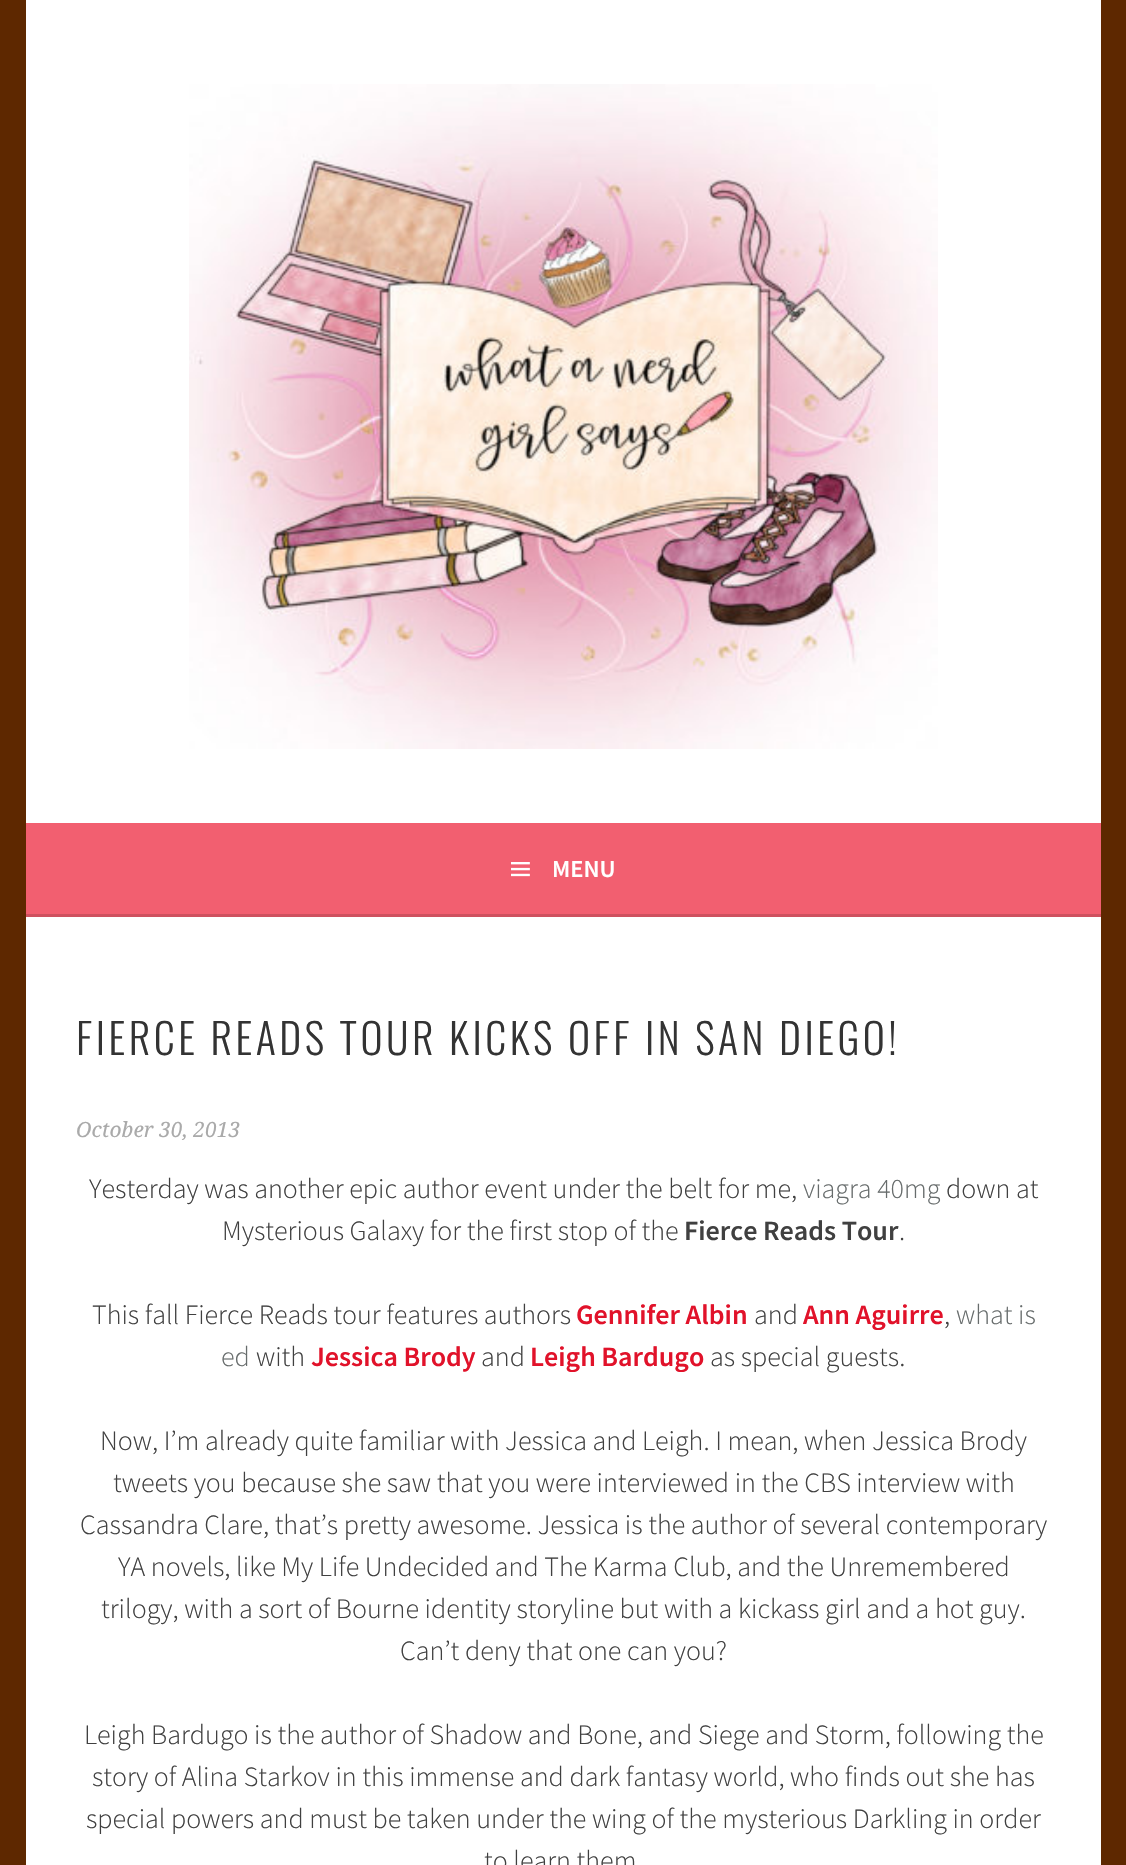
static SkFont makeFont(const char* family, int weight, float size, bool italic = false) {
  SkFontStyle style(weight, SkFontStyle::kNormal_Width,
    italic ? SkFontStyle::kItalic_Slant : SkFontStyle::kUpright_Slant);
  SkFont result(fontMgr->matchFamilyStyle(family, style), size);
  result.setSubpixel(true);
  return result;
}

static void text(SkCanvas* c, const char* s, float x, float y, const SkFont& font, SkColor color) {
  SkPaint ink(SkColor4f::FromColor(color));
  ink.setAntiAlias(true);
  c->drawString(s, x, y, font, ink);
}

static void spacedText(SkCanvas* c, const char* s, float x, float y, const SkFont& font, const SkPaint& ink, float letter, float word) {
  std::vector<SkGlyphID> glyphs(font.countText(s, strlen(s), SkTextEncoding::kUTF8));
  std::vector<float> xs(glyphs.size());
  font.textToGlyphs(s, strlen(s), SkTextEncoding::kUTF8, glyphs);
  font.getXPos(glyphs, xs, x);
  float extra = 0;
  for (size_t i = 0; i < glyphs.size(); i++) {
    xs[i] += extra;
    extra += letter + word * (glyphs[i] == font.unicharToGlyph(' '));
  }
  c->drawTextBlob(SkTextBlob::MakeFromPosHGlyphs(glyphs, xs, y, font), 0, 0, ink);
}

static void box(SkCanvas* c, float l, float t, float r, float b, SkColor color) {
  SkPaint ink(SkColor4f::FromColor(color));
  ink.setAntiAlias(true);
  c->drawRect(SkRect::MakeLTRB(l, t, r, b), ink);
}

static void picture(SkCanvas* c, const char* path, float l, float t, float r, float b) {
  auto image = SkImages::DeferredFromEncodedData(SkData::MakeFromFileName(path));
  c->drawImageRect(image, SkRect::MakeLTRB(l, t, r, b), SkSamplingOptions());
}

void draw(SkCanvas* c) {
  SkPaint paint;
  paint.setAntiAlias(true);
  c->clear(0xff5e2800);
  box(c, 26, 0, 1101, 823, 0xffffffff);
  picture(c, "img_01.png", 189, 84, 938, 749);
  box(c, 26, 823, 1101, 914, 0xfff25f70);
  box(c, 26, 914, 1101, 917, 0xffce515f);
  picture(c, "img_02.png", 511, 862, 530, 877);
  SkFont face1 = makeFont("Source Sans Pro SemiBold", 600, 24.5f);
  text(c, "MENU", 552, 877, face1, 0xffffffff);
  box(c, 26, 917, 1101, 1865, 0xffffffff);
  SkFont face2 = makeFont("Oswald", 300, 42);
  paint.setColor(0xff333333);
  spacedText(c, "FIERCE READS TOUR KICKS OFF IN SAN DIEGO!", 76, 1055, face2, paint, 3.5f, 0);
  SkFont face3 = makeFont("Droid Serif", 400, 21, true);
  text(c, "October 30, 2013", 76, 1137, face3, 0xffaaaaaa);
  SkFont face4 = makeFont("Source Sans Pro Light", 300, 28);
  text(c, "Yesterday was another epic author event under the belt for me,", 89, 1198, face4, 0xff404040);
  text(c, "viagra 40mg", 803, 1198, face4, 0xff676c6c);
  text(c, "down at", 946, 1198, face4, 0xff404040);
  text(c, "Mysterious Galaxy for the first stop of the", 222, 1240, face4, 0xff404040);
  SkFont face5 = makeFont("Source Sans Pro SemiBold", 600, 28);
  text(c, "Fierce Reads Tour", 684, 1240, face5, 0xff404040);
  text(c, ".", 899, 1240, face4, 0xff404040);
  text(c, "This fall Fierce Reads tour features authors", 92, 1324, face4, 0xff404040);
  text(c, "Gennifer Albin", 576, 1324, face5, 0xffe1122a);
  text(c, "and", 754, 1324, face4, 0xff404040);
  text(c, "Ann Aguirre", 803, 1324, face5, 0xffe1122a);
  text(c, ",", 944, 1324, face4, 0xff404040);
  text(c, "what is", 956, 1324, face4, 0xff676c6c);
  text(c, "ed", 221, 1366, face4, 0xff676c6c);
  text(c, "with", 256, 1366, face4, 0xff404040);
  text(c, "Jessica Brody", 311, 1366, face5, 0xffe1122a);
  text(c, "and", 481, 1366, face4, 0xff404040);
  text(c, "Leigh Bardugo", 530, 1366, face5, 0xffe1122a);
  text(c, "as special guests.", 710, 1366, face4, 0xff404040);
  text(c, "Now, I’m already quite familiar with Jessica and Leigh. I mean, when Jessica Brody", 100, 1450, face4, 0xff404040);
  text(c, "tweets you because she saw that you were interviewed in the CBS interview with", 113, 1492, face4, 0xff404040);
  text(c, "Cassandra Clare, that’s pretty awesome. Jessica is the author of several contemporary", 80, 1534, face4, 0xff404040);
  text(c, "YA novels, like My Life Undecided and The Karma Club, and the Unremembered", 118, 1576, face4, 0xff404040);
  text(c, "trilogy, with a sort of Bourne identity storyline but with a kickass girl and a hot guy.", 101, 1618, face4, 0xff404040);
  text(c, "Can’t deny that one can you?", 400, 1660, face4, 0xff404040);
  text(c, "Leigh Bardugo is the author of Shadow and Bone, and Siege and Storm, following the", 84, 1744, face4, 0xff404040);
  text(c, "story of Alina Starkov in this immense and dark fantasy world, who finds out she has", 92, 1786, face4, 0xff404040);
  text(c, "special powers and must be taken under the wing of the mysterious Darkling in order", 86, 1828, face4, 0xff404040);
  text(c, "to learn them", 484, 1870, face4, 0xff404040);
}
